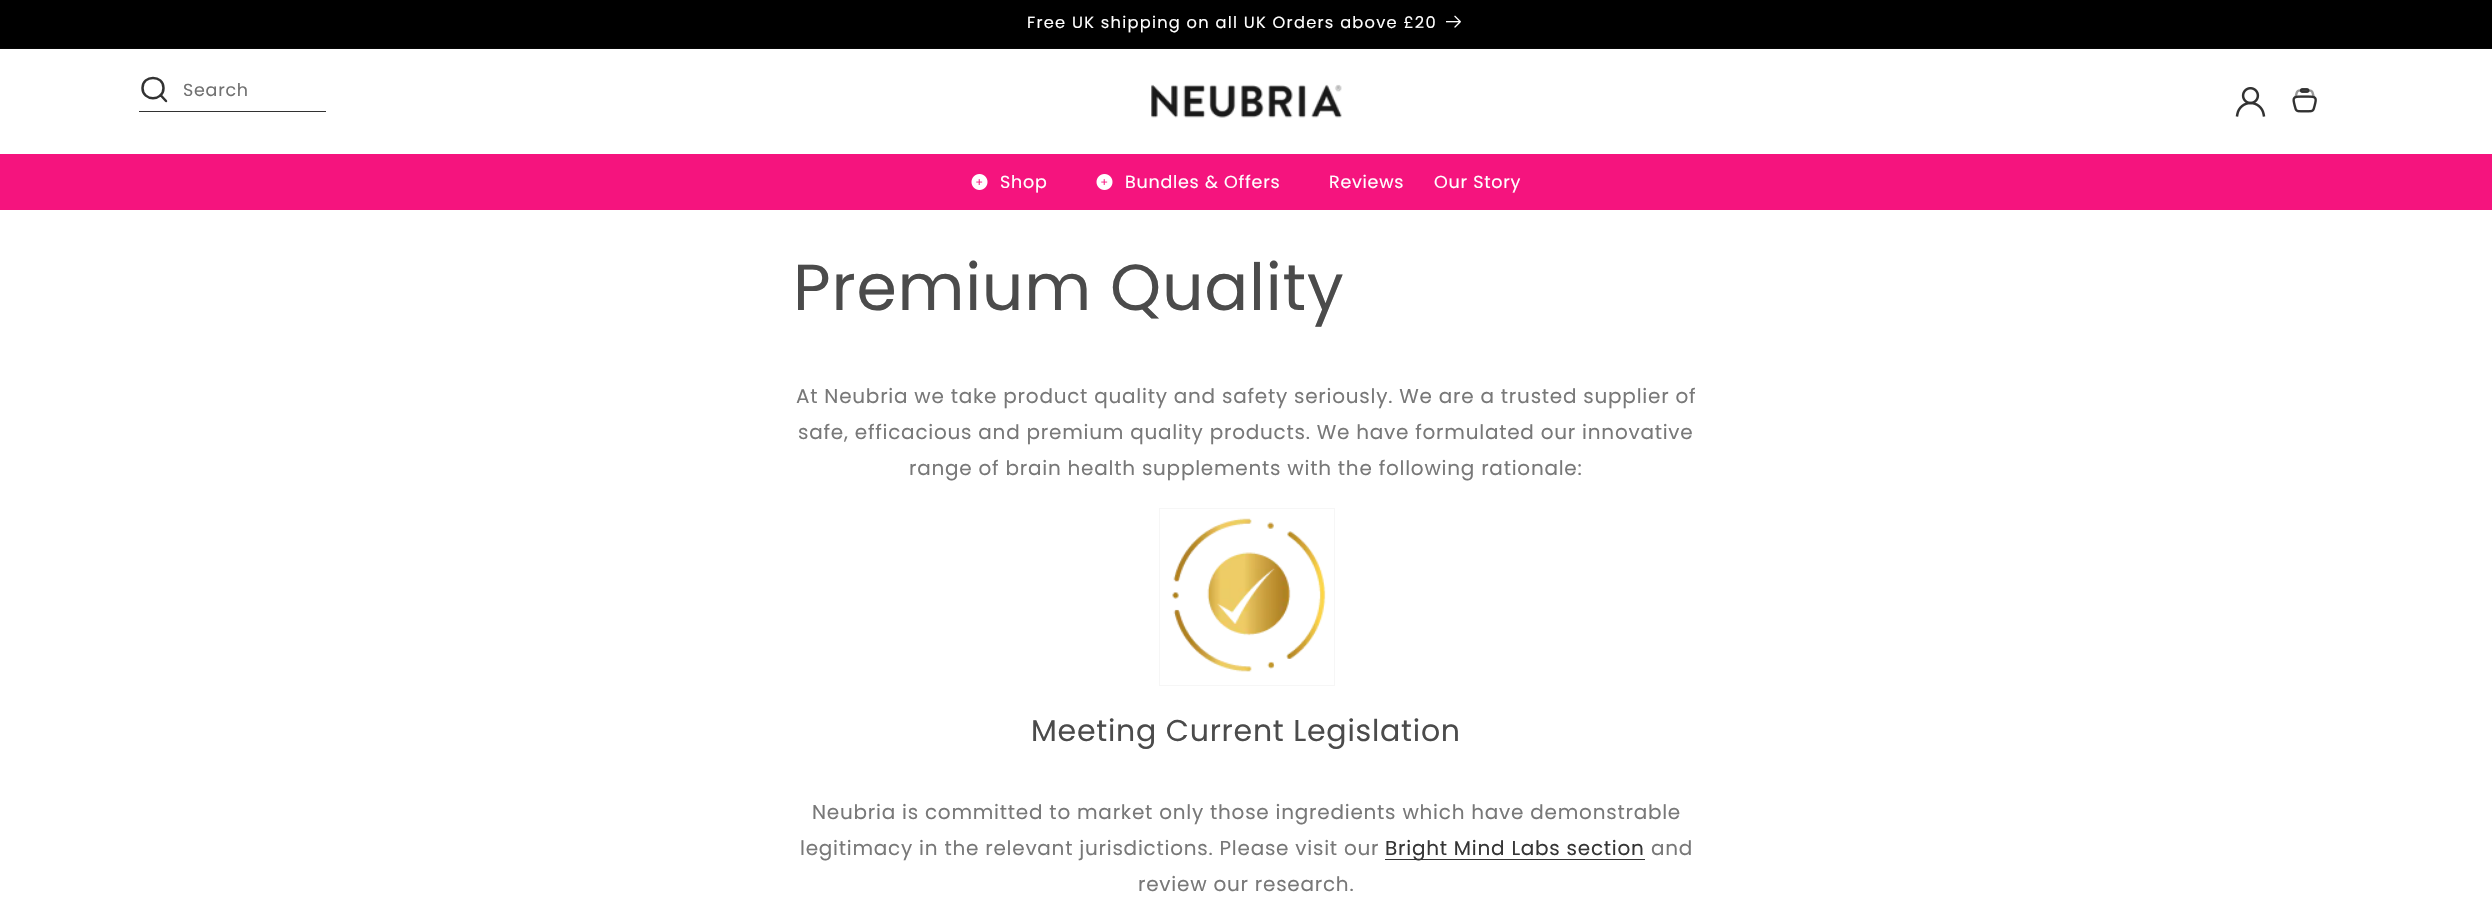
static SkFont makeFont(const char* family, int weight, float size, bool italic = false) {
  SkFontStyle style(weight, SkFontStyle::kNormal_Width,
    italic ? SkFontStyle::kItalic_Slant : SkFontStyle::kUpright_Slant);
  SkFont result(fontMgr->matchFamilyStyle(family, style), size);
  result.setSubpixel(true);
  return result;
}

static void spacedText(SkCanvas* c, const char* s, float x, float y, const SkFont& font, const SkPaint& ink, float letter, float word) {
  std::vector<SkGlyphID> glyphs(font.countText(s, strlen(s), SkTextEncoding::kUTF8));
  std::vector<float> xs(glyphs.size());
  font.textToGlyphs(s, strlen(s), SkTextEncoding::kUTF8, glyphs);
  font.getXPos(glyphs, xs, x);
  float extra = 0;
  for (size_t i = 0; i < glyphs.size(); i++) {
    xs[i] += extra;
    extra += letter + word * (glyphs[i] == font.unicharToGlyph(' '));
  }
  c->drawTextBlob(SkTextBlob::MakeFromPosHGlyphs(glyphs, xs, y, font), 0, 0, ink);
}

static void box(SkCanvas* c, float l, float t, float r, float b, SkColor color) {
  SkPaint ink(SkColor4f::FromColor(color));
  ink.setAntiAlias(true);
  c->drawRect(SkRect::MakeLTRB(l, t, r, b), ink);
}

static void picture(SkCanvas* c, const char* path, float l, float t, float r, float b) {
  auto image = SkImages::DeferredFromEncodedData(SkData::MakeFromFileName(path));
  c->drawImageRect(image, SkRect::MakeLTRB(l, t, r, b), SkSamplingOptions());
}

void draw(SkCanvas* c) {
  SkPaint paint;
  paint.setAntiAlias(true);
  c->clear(0xffffffff);
  box(c, 0, 0, 2492, 48, 0xff000000);
  box(c, 0, 48, 2492, 49, 0xff060606);
  SkFont face1 = makeFont("Poppins", 400, 16.25f);
  paint.setColor(0xffffffff);
  spacedText(c, "Free UK shipping on all UK Orders above £20", 1027, 28, face1, paint, 1.25f, 0);
  picture(c, "img_01.png", 1446, 15, 1461, 28);
  box(c, 139, 111, 326, 112, 0xff323232);
  paint.setStyle(SkPaint::kStroke_Style);
  paint.setStrokeWidth(2.5f);
  paint.setStrokeCap(SkPaint::kRound_Cap);
  paint.setStrokeJoin(SkPaint::kRound_Join);
  paint.setColor(0xff323232);
  c->drawPath(SkPathBuilder().moveTo(160.5f, 95).lineTo(166, 101).moveTo(163.5f, 88).cubicTo(163.5f, 101.5f, 142.5f, 101.5f, 142.5f, 88).cubicTo(142.5f, 74.5f, 163.5f, 74.5f, 163.5f, 88).close().detach(), paint);
  SkFont face2 = makeFont("Poppins", 400, 17.5f);
  paint.setStyle(SkPaint::kFill_Style);
  paint.setColor(0xff717171);
  spacedText(c, "Search", 183, 96, face2, paint, 0.75f, 0);
  picture(c, "img_02.png", 1151, 84, 1342, 118);
  picture(c, "img_03.png", 2235, 87, 2266, 117);
  picture(c, "img_04.png", 2292, 88, 2317, 113);
  box(c, 0, 154, 2492, 210, 0xfff5147e);
  picture(c, "img_05.png", 971, 174, 988, 190);
  paint.setColor(0xffffffff);
  spacedText(c, "Shop", 1000, 188, face2, paint, 0.75f, 0);
  picture(c, "img_05.png", 1096, 174, 1113, 190);
  spacedText(c, "Bundles & Offers", 1125, 188, face2, paint, 0.75f, 0);
  spacedText(c, "Reviews", 1329, 188, face2, paint, 0.75f, 0);
  spacedText(c, "Our Story", 1434, 188, face2, paint, 0.75f, 0);
  SkFont face3 = makeFont("Poppins", 400, 65);
  paint.setColor(0xff4b4b4b);
  spacedText(c, "Premium Quality", 793, 310, face3, paint, 0.75f, 0);
  SkFont face4 = makeFont("Poppins", 400, 20);
  paint.setColor(0xff787878);
  spacedText(c, "At Neubria we take product quality and safety seriously. We are a trusted supplier of", 796, 403, face4, paint, 0.75f, 0);
  spacedText(c, "safe, efficacious and premium quality products. We have formulated our innovative", 798, 439, face4, paint, 0.75f, 0);
  spacedText(c, "range of brain health supplements with the following rationale:", 909, 475, face4, paint, 0.75f, 0);
  paint.setStyle(SkPaint::kStroke_Style);
  paint.setStrokeWidth(1);
  paint.setStrokeCap(SkPaint::kButt_Cap);
  paint.setStrokeJoin(SkPaint::kMiter_Join);
  paint.setColor(0xfff6f6f6);
  c->drawRect(SkRect::MakeLTRB(1159.5f, 508.5f, 1334.5f, 685.5f), paint);
  picture(c, "img_06.png", 1172, 518, 1326, 672);
  SkFont face5 = makeFont("Poppins", 400, 30);
  paint.setStyle(SkPaint::kFill_Style);
  paint.setColor(0xff4b4b4b);
  spacedText(c, "Meeting Current Legislation", 1031, 741, face5, paint, 0.75f, 0);
  paint.setColor(0xff787878);
  spacedText(c, "Neubria is committed to market only those ingredients which have demonstrable", 812, 819, face4, paint, 0.75f, 0);
  spacedText(c, "legitimacy in the relevant jurisdictions. Please visit our", 800, 855, face4, paint, 0.75f, 0);
  box(c, 1385, 859, 1645, 860, 0xff363636);
  paint.setColor(0xff353535);
  spacedText(c, "Bright Mind Labs section", 1385, 855, face4, paint, 0.75f, 0);
  paint.setColor(0xff787878);
  spacedText(c, "and", 1651, 855, face4, paint, 0.75f, 0);
  spacedText(c, "review our research.", 1138, 891, face4, paint, 0.75f, 0);
}
